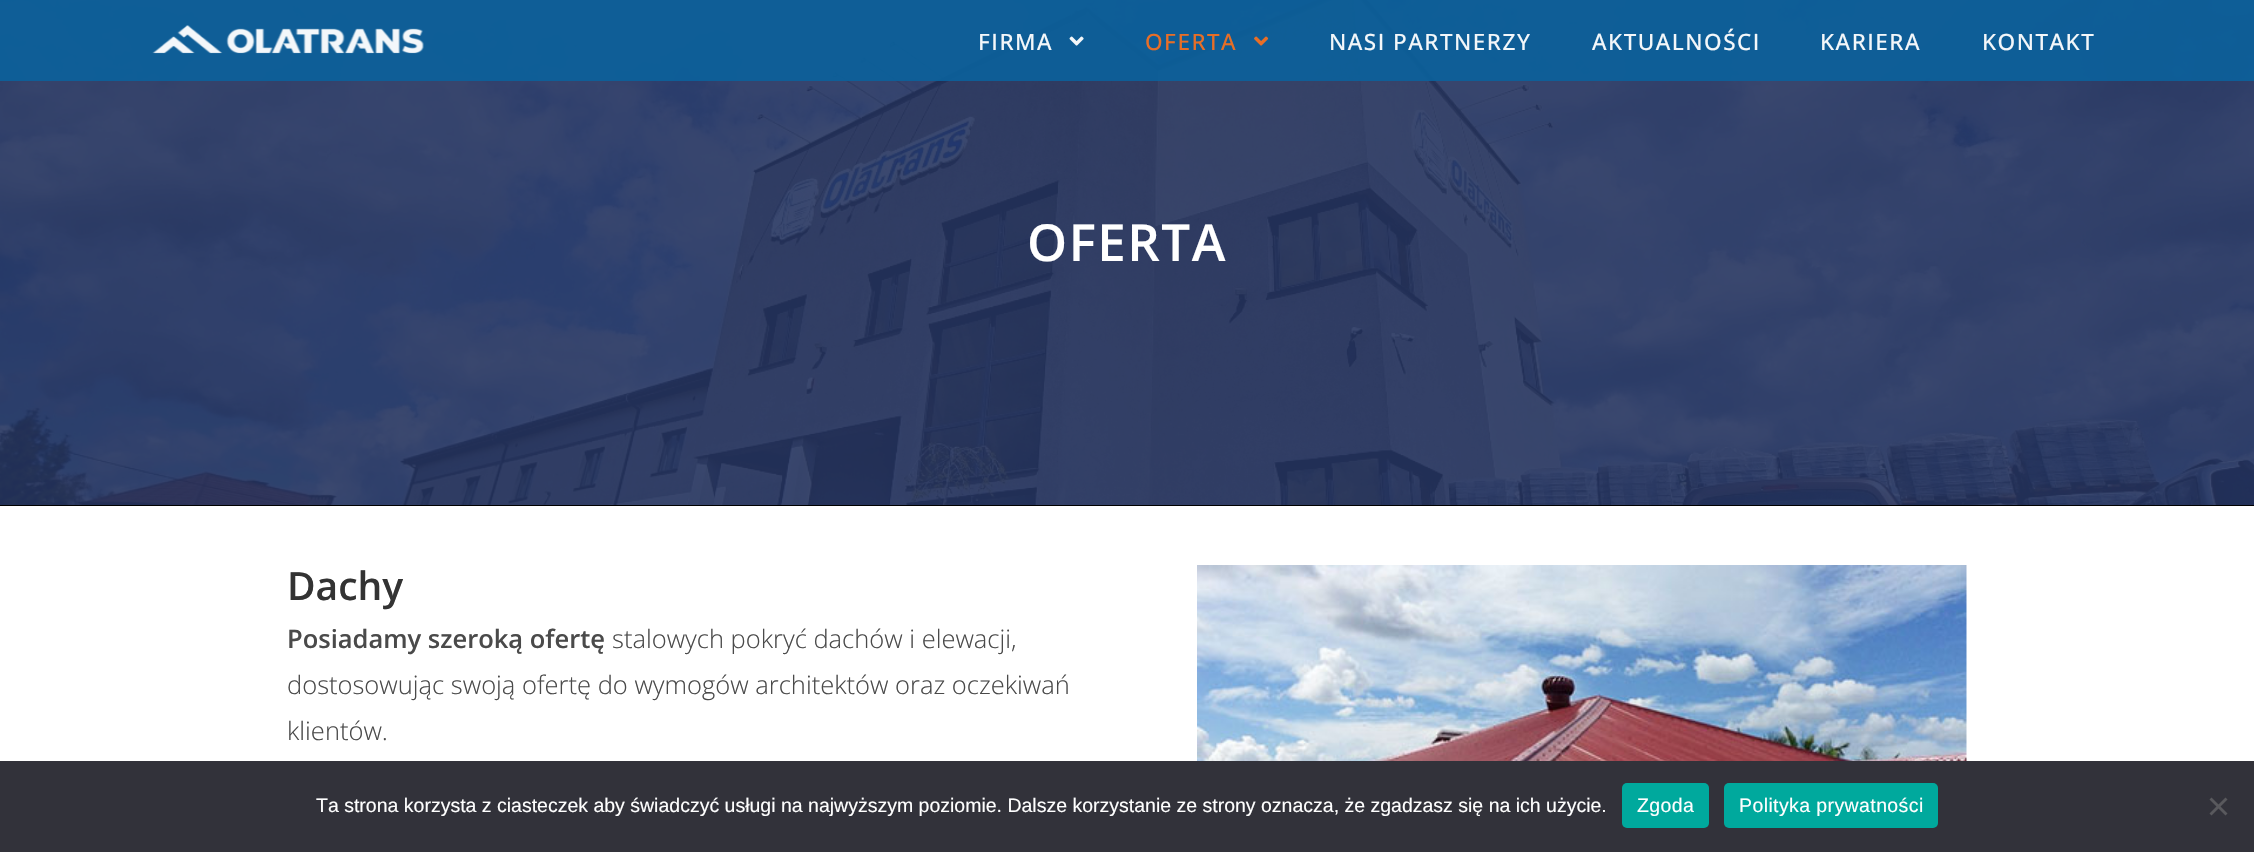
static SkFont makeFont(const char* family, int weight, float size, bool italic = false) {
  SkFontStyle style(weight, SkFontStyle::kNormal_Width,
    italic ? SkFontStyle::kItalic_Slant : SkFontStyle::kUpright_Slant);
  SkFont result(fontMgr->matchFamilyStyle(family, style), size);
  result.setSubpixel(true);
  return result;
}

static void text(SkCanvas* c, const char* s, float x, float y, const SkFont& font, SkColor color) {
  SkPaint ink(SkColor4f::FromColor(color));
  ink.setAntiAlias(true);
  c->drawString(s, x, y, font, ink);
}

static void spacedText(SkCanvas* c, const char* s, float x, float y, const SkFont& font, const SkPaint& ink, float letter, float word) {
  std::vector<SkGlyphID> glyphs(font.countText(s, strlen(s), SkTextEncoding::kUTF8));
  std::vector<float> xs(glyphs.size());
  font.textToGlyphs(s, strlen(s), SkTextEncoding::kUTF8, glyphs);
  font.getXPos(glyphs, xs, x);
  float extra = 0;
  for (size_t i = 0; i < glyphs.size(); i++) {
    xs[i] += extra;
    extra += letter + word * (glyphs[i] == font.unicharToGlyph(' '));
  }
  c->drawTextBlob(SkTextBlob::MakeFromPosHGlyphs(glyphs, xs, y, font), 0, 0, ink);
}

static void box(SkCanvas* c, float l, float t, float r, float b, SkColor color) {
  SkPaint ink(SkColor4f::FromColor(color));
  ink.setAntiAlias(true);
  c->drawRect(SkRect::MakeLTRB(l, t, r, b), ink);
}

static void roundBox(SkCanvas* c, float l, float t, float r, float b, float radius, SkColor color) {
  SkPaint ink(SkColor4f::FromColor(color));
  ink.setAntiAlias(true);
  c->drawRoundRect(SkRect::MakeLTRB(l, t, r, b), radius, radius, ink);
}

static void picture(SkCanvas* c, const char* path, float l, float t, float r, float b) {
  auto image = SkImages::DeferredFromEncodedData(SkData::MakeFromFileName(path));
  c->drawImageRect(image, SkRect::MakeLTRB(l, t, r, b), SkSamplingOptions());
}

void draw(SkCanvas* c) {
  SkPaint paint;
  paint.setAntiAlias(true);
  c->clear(0xffffffff);
  picture(c, "img_04.png", 0, 0, 2254, 505);
  box(c, 0, 0, 2254, 81, 0xe60a609b);
  picture(c, "img_01.png", 152, 25, 424, 54);
  SkFont face1 = makeFont("Open Sans", 500, 22.5f);
  paint.setColor(0xfff3f7fa);
  spacedText(c, "FIRMA", 978, 50, face1, paint, 1.5f, 0);
  picture(c, "img_02.png", 1069, 36, 1084, 46);
  paint.setColor(0xffe76e27);
  spacedText(c, "OFERTA", 1145, 50, face1, paint, 1.5f, 0);
  picture(c, "img_03.png", 1254, 36, 1269, 46);
  paint.setColor(0xfff3f7fa);
  spacedText(c, "NASI PARTNERZY", 1329, 50, face1, paint, 1.5f, 0);
  spacedText(c, "AKTUALNOŚCI", 1592, 50, face1, paint, 1.5f, 0);
  spacedText(c, "KARIERA", 1820, 50, face1, paint, 1.5f, 0);
  spacedText(c, "KONTAKT", 1982, 50, face1, paint, 1.5f, 0);
  box(c, 0, 505, 2254, 506, 0xff000000);
  SkFont face2 = makeFont("Open Sans", 600, 51);
  paint.setColor(0xffffffff);
  spacedText(c, "OFERTA", 1027, 261, face2, paint, 1.5f, 0);
  SkFont face3 = makeFont("Open Sans", 600, 39);
  text(c, "Dachy", 287, 600, face3, 0xff333333);
  SkFont face4 = makeFont("Open Sans", 600, 25.5f);
  text(c, "Posiadamy szeroką ofertę", 287, 648, face4, 0xff4a4a4a);
  SkFont face5 = makeFont("Open Sans", 300, 25.5f);
  text(c, "stalowych pokryć dachów i elewacji,", 612, 648, face5, 0xff4a4a4a);
  text(c, "dostosowując swoją ofertę do wymogów architektów oraz oczekiwań", 287, 694, face5, 0xff4a4a4a);
  text(c, "klientów.", 287, 740, face5, 0xff4a4a4a);
  picture(c, "img_05.png", 1197, 565, 1967, 761);
  box(c, 0, 761, 2254, 852, 0xff32323a);
  SkFont face6 = makeFont("Liberation Sans", 400, 19.5f);
  text(c, "Ta strona korzysta z ciasteczek aby świadczyć usługi na najwyższym poziomie. Dalsze korzystanie ze strony oznacza, że zgadzasz się na ich użycie.", 316, 812, face6, 0xffffffff);
  roundBox(c, 1622, 783, 1709, 828, 5, 0xff00a99d);
  spacedText(c, "Zgoda", 1637, 812, face6, paint, 0.4f, 0);
  roundBox(c, 1724, 783, 1938, 828, 5, 0xff00a99d);
  spacedText(c, "Polityka prywatności", 1739, 812, face6, paint, 0.4f, 0);
  paint.setColor(0xff59595d);
  c->drawPath(SkPathBuilder().moveTo(2225.5f, 797.5f).lineTo(2227.5f, 799.5f).lineTo(2211.5f, 815.5f).lineTo(2209.5f, 813.5f).close().detach(), paint);
  c->drawPath(SkPathBuilder().moveTo(2209.5f, 799.5f).lineTo(2211.5f, 797.5f).lineTo(2227.5f, 813.5f).lineTo(2225.5f, 815.5f).close().detach(), paint);
}
